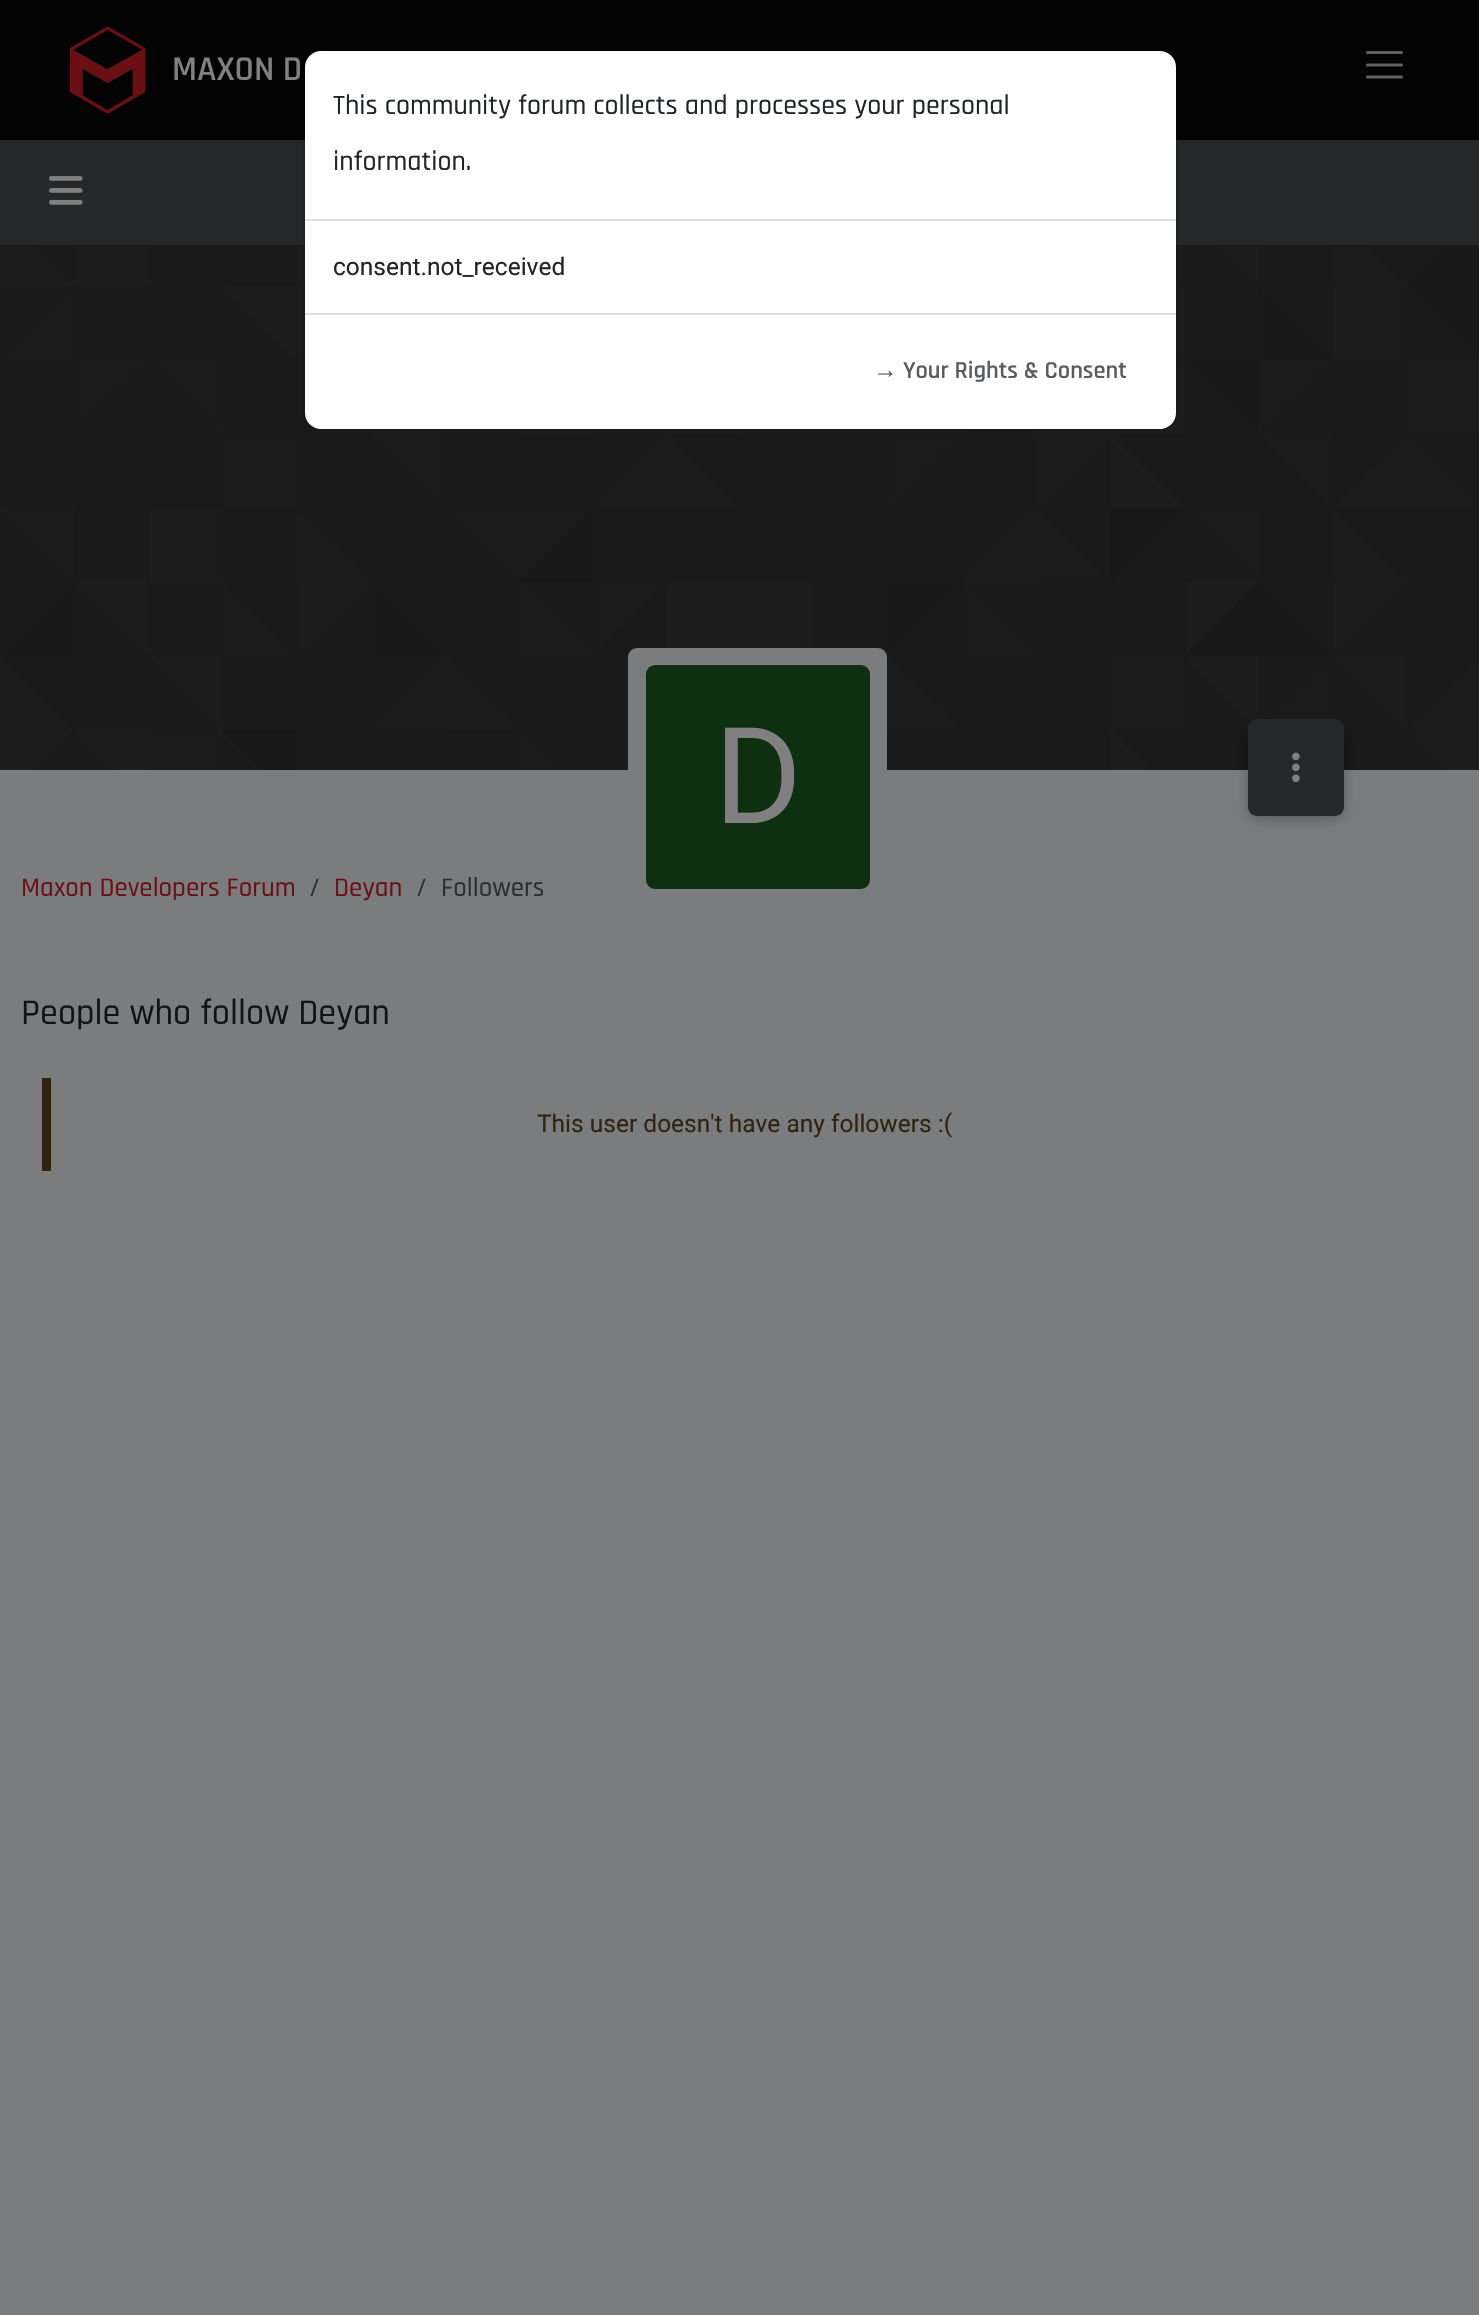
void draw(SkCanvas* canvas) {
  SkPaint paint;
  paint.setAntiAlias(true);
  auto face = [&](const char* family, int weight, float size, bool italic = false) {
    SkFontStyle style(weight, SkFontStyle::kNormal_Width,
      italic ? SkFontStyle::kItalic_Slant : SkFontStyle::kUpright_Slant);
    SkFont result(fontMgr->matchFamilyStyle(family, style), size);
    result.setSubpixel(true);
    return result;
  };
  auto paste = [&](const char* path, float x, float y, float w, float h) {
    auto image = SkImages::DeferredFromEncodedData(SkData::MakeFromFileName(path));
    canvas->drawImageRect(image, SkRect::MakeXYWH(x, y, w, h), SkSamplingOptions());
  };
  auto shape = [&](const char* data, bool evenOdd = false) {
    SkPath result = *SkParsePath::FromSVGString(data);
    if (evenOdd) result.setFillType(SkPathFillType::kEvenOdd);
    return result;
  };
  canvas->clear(0xff7b7c7d);
  paint.setColor(0xff030303);
  canvas->drawRect(SkRect::MakeXYWH(0, 0, 1479, 140), paint);
  paste("img/1.png", 70, 26, 76, 88);
  paint.setStroke(true);
  paint.setStrokeWidth(3.1f);
  paint.setStrokeCap(SkPaint::kRound_Cap);
  paint.setColor(0xff616161);
  canvas->drawPath(shape("M1367.5 52.5H1401.5M1367.5 65H1401.5M1367.5 77H1401.5"), paint);
  paint.setStroke(false);
  paint.setColor(0xff252728);
  canvas->drawRect(SkRect::MakeXYWH(0, 140, 1479, 105), paint);
  paste("img/2.png", 49, 176, 34, 29);
  paste("img/3.png", 0, 245, 1479, 525);
  paint.setColor(0xff7b7c7d);
  canvas->drawRoundRect(SkRect::MakeXYWH(628, 648, 259, 259), 9, 9, paint);
  paint.setColor(0xff0e2f10);
  canvas->drawRoundRect(SkRect::MakeXYWH(646, 665, 224, 224), 9, 9, paint);
  paint.setColor(0x1f000000);
  paint.setMaskFilter(SkMaskFilter::MakeBlur(kNormal_SkBlurStyle, 9));
  canvas->drawRoundRect(SkRect::MakeXYWH(1248, 723, 96, 96), 9, 9, paint);
  paint.setMaskFilter(nullptr);
  paint.setColor(0x29000000);
  paint.setMaskFilter(SkMaskFilter::MakeBlur(kNormal_SkBlurStyle, 4.5f));
  canvas->drawRoundRect(SkRect::MakeXYWH(1248, 723, 96, 96), 9, 9, paint);
  paint.setMaskFilter(nullptr);
  paint.setColor(0xff252728);
  canvas->drawRoundRect(SkRect::MakeXYWH(1248, 719, 96, 97), 9, 9, paint);
  paste("img/4.png", 1292, 752, 8, 31);
  paint.setColor(0xff302310);
  canvas->drawRect(SkRect::MakeXYWH(42, 1078, 9, 93), paint);
  paint.setColor(0xffffffff);
  canvas->drawRoundRect(SkRect::MakeXYWH(305, 51, 871, 378), 16, 16, paint);
  paint.setStroke(true);
  paint.setStrokeWidth(2);
  paint.setStrokeCap(SkPaint::kButt_Cap);
  paint.setColor(0x1a000000);
  canvas->drawRoundRect(SkRect::MakeXYWH(304, 50, 873, 380), 17, 17, paint);
  paint.setStroke(false);
  paint.setColor(0xffdee2e6);
  canvas->drawRect(SkRect::MakeXYWH(305, 219, 871, 2), paint);
  canvas->drawRect(SkRect::MakeXYWH(305, 313, 871, 2), paint);
  auto f0 = face("Rajdhani", 600, 35);
  paint.setColor(0xff808080);
  canvas->drawString("MAXON D", 172, 80, f0, paint);
  auto f1 = face("Roboto", 400, 134);
  canvas->drawString("D", 714, 823, f1, paint);
  auto f2 = face("Rajdhani", 500, 27);
  paint.setColor(0xff6a1014);
  canvas->drawString("Maxon Developers Forum", 21, 896, f2, paint);
  paint.setColor(0xff2b2d2f);
  canvas->drawString("/", 309, 896, f2, paint);
  paint.setColor(0xff6a1014);
  canvas->drawString("Deyan", 334, 896, f2, paint);
  paint.setColor(0xff2b2d2f);
  canvas->drawString("/", 416, 896, f2, paint);
  canvas->drawString("Followers", 441, 896, f2, paint);
  auto f3 = face("Rajdhani", 500, 36.25f);
  paint.setColor(0xff111315);
  canvas->drawString("People who follow Deyan", 21, 1024, f3, paint);
  auto f4 = face("Roboto", 400, 24.5f);
  paint.setColor(0xff302310);
  canvas->drawString("This user doesn't have any followers :(", 537, 1132, f4, paint);
  auto f5 = face("Rajdhani", 500, 28);
  paint.setColor(0xff212529);
  canvas->drawString("This community forum collects and processes your personal", 333, 114, f5, paint);
  canvas->drawString("information.", 333, 170, f5, paint);
  canvas->drawString("consent.not_received", 333, 275, f4, paint);
  auto f6 = face("Liberation Sans", 700, 24.5f);
  paint.setColor(0xff595c5f);
  canvas->drawString("→", 873, 378, f6, paint);
  auto f7 = face("Rajdhani", 600, 24.5f);
  canvas->drawString("Your Rights & Consent", 903, 378, f7, paint);
}
